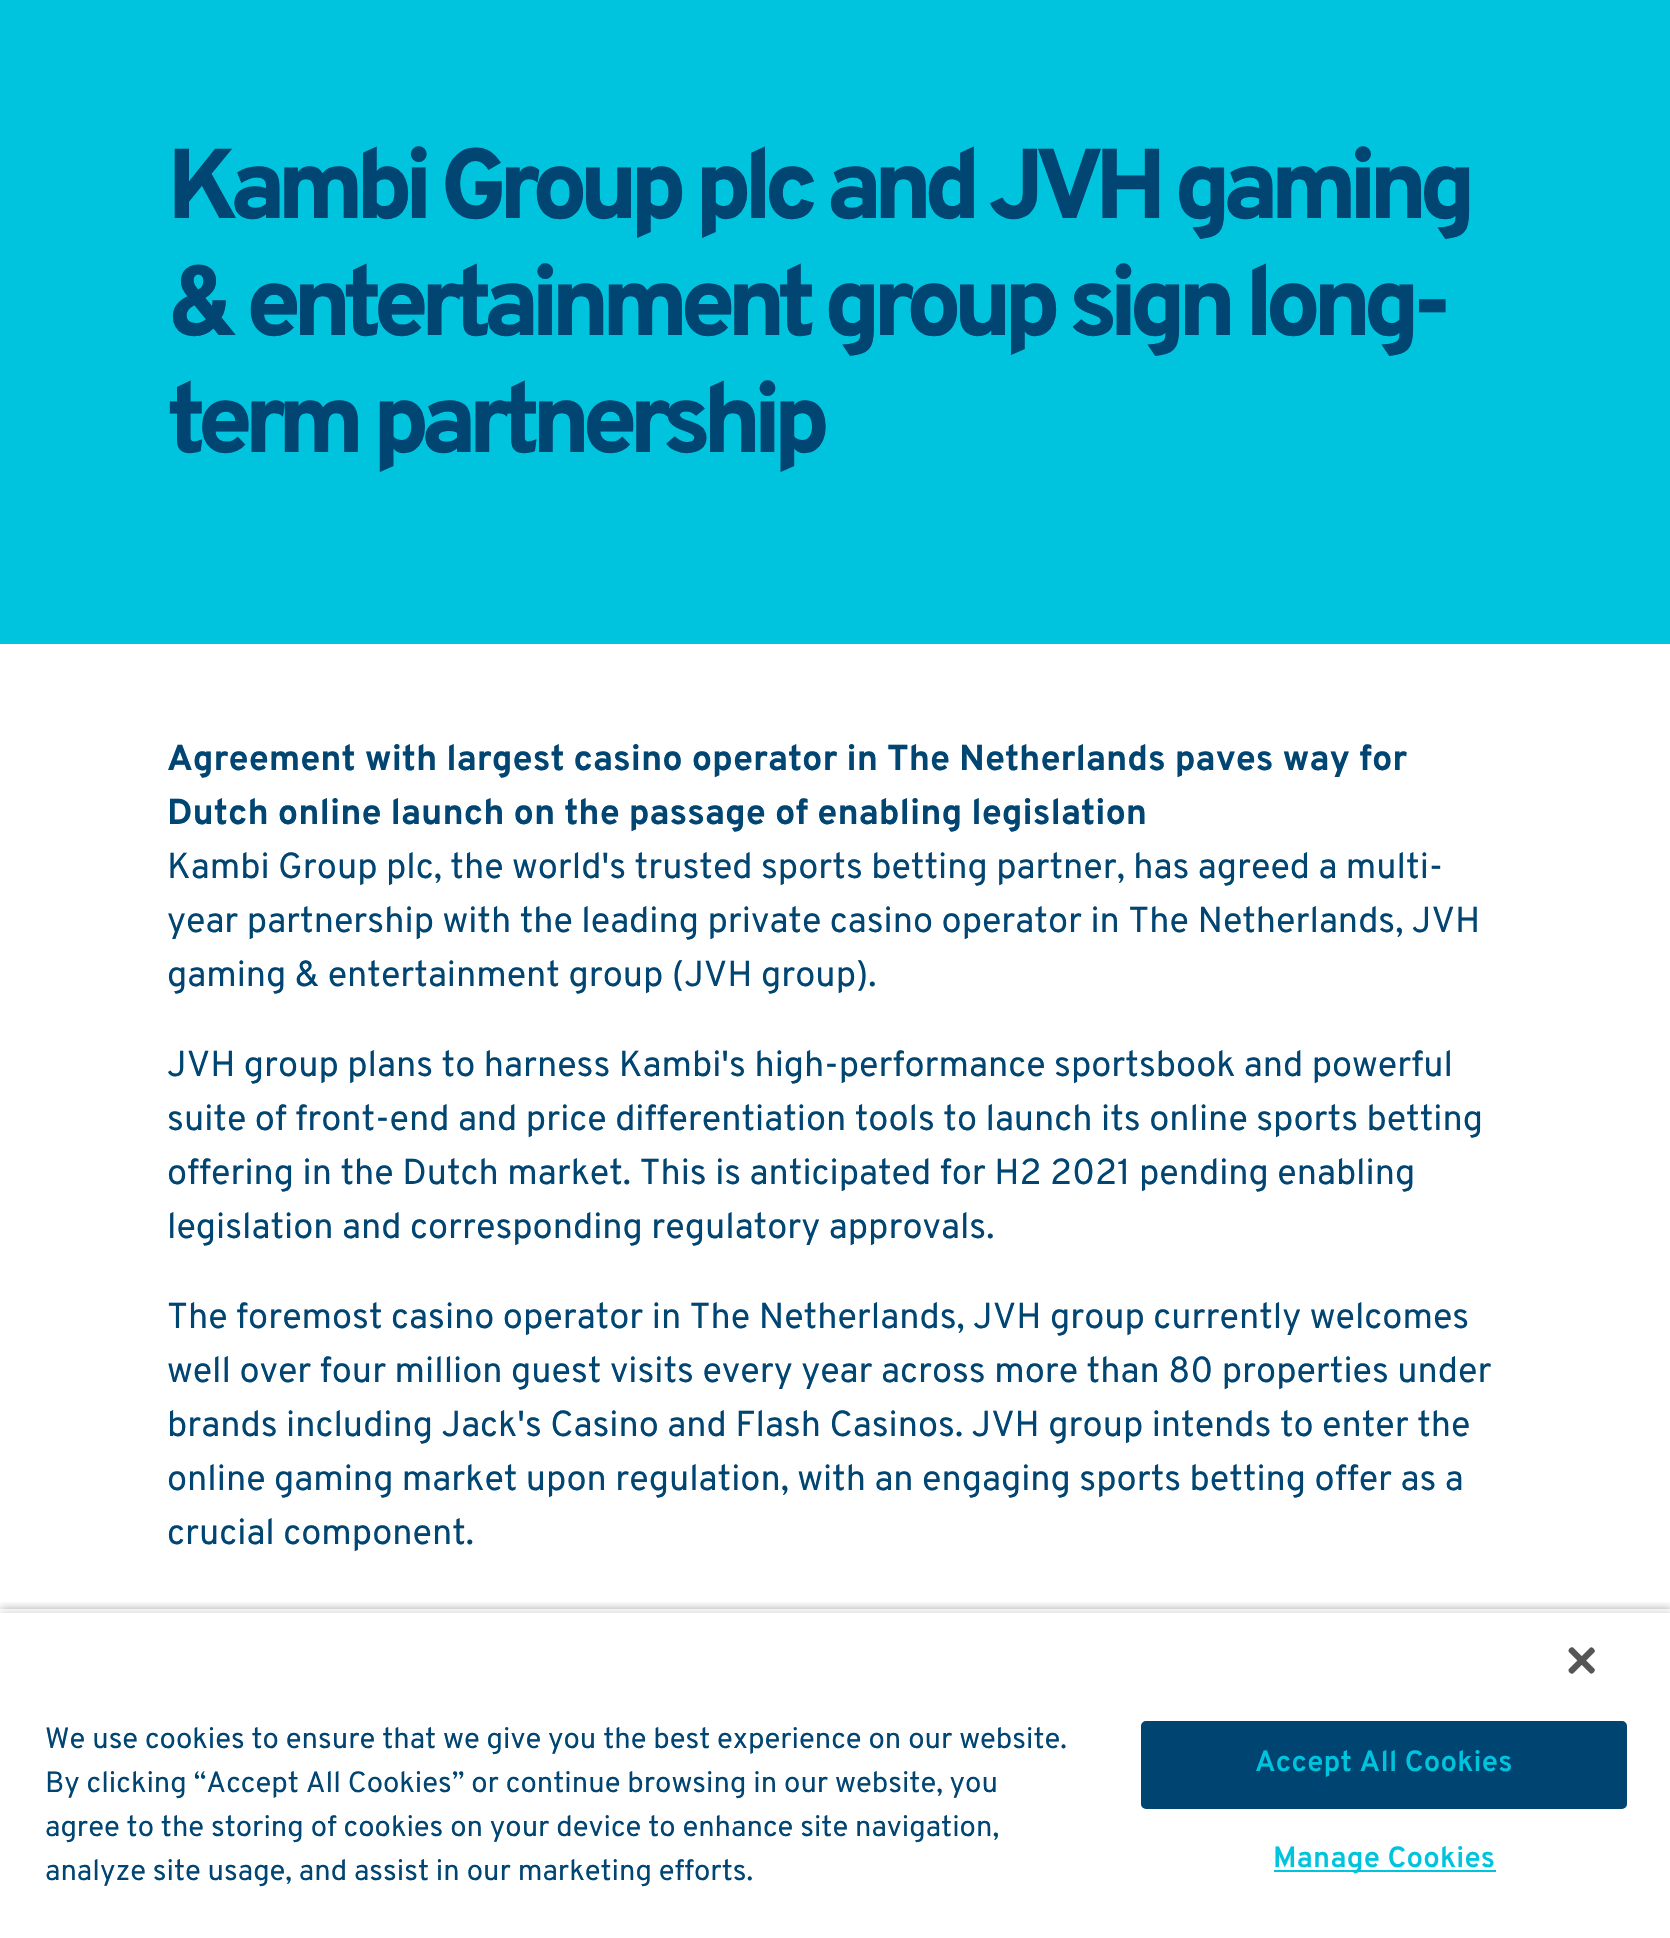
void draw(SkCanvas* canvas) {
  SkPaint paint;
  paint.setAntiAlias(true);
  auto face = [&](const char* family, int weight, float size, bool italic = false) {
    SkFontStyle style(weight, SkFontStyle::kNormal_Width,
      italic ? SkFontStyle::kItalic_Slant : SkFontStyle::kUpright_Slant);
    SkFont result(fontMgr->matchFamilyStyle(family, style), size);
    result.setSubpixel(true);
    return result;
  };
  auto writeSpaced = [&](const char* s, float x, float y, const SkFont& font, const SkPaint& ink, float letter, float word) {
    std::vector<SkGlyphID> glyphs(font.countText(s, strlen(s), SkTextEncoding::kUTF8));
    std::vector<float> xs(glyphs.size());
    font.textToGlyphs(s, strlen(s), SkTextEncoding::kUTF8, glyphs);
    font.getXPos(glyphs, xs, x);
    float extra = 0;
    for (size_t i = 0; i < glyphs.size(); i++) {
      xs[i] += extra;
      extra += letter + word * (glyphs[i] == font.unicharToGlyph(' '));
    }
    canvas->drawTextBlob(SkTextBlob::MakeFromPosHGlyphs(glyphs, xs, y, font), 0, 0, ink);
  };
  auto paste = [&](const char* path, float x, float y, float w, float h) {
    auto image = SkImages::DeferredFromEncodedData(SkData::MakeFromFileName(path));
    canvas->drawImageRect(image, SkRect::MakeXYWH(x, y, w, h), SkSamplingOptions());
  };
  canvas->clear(0xffffffff);
  paint.setColor(0xff00c4de);
  canvas->drawRect(SkRect::MakeXYWH(0, 0, 1670, 644), paint);
  canvas->save();
  canvas->clipRect(SkRect::MakeXYWH(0, 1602, 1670, 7));
  paint.setColor(0x59000000);
  paint.setMaskFilter(SkMaskFilter::MakeBlur(kNormal_SkBlurStyle, 4.5f));
  canvas->drawRect(SkRect::MakeXYWH(0, 1609, 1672, 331), paint);
  paint.setMaskFilter(nullptr);
  canvas->restore();
  canvas->save();
  canvas->clipRect(SkRect::MakeXYWH(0, 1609, 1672, 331));
  paint.setColor(0x33000000);
  paint.setMaskFilter(SkMaskFilter::MakeBlur(kNormal_SkBlurStyle, 4.5f));
  canvas->drawRect(SkRect::MakeXYWH(0, 1613, 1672, 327), paint);
  paint.setMaskFilter(nullptr);
  canvas->restore();
  paint.setColor(0xffffffff);
  canvas->drawRect(SkRect::MakeXYWH(0, 1613, 1670, 325), paint);
  paste("img/1.png", 1568, 1647, 27, 27);
  paint.setColor(0xff004572);
  canvas->drawRoundRect(SkRect::MakeXYWH(1142, 1722, 484, 86), 4, 4, paint);
  paint.setStroke(true);
  paint.setStrokeWidth(2);
  canvas->drawRoundRect(SkRect::MakeXYWH(1142, 1722, 484, 86), 4, 4, paint);
  paint.setStroke(false);
  paint.setColor(0xff00c4de);
  canvas->drawRect(SkRect::MakeXYWH(1274, 1870, 222, 2), paint);
  auto f0 = face("Overpass", 800, 99);
  paint.setColor(0xff014572);
  {
    const struct { const char* s; float x, y; } items[] = {
      {"Kambi Group plc and JVH gaming", 167, 218},
      {"& entertainment group sign long-", 167, 335},
      {"term partnership", 167, 452},
    };
    for (auto [s, x, y] : items) {
      writeSpaced(s, x, y, f0, paint, -9, 0);
    }
  }
  auto f1 = face("Overpass", 700, 36);
  canvas->drawString("Agreement with largest casino operator in The Netherlands paves way for", 167, 770, f1, paint);
  canvas->drawString("Dutch online launch on the passage of enabling legislation", 167, 824, f1, paint);
  auto f2 = face("Overpass", 400, 36);
  {
    const struct { const char* s; float x, y; } items[] = {
      {"Kambi Group plc, the world's trusted sports betting partner, has agreed a multi-", 167, 878},
      {"year partnership with the leading private casino operator in The Netherlands, JVH", 167, 932},
      {"gaming & entertainment group (JVH group).", 167, 986},
      {"JVH group plans to harness Kambi's high-performance sportsbook and powerful", 167, 1076},
      {"suite of front-end and price differentiation tools to launch its online sports betting", 167, 1130},
      {"offering in the Dutch market. This is anticipated for H2 2021 pending enabling", 167, 1184},
      {"legislation and corresponding regulatory approvals.", 167, 1238},
      {"The foremost casino operator in The Netherlands, JVH group currently welcomes", 167, 1328},
      {"well over four million guest visits every year across more than 80 properties under", 167, 1382},
      {"brands including Jack's Casino and Flash Casinos. JVH group intends to enter the", 167, 1436},
      {"online gaming market upon regulation, with an engaging sports betting offer as a", 167, 1490},
      {"crucial component.", 167, 1544},
    };
    for (auto [s, x, y] : items) {
      canvas->drawString(s, x, y, f2, paint);
    }
  }
  auto f3 = face("Overpass", 400, 29.25f);
  {
    const struct { const char* s; float x, y; } items[] = {
      {"We use cookies to ensure that we give you the best experience on our website.", 45, 1748},
      {"By clicking “Accept All Cookies” or continue browsing in our website, you", 45, 1792},
      {"agree to the storing of cookies on your device to enhance site navigation,", 45, 1836},
      {"analyze site usage, and assist in our marketing efforts.", 45, 1880},
    };
    for (auto [s, x, y] : items) {
      canvas->drawString(s, x, y, f3, paint);
    }
  }
  auto f4 = face("Overpass", 600, 29.25f);
  paint.setColor(0xff00c4de);
  writeSpaced("Accept All Cookies", 1255, 1771, f4, paint, 0.25f, 0);
  writeSpaced("Manage Cookies", 1273, 1867, f4, paint, 0.25f, 0);
}
